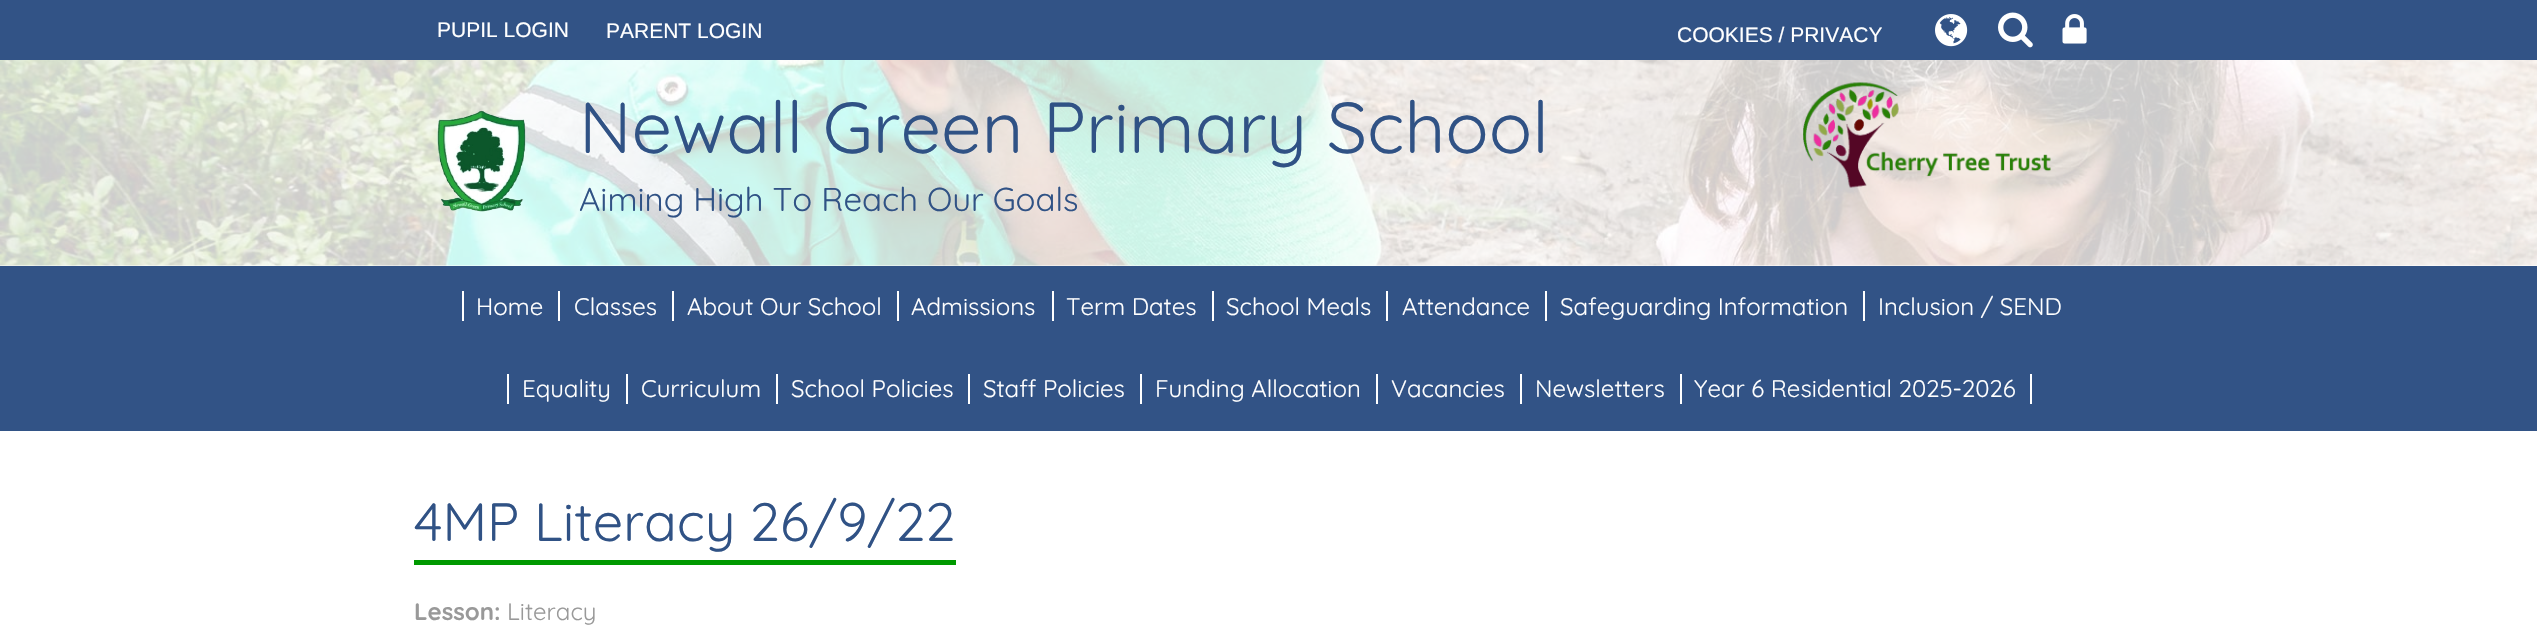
void draw(SkCanvas* canvas) {
  SkPaint paint;
  paint.setAntiAlias(true);
  auto face = [&](const char* family, int weight, float size, bool italic = false) {
    SkFontStyle style(weight, SkFontStyle::kNormal_Width,
      italic ? SkFontStyle::kItalic_Slant : SkFontStyle::kUpright_Slant);
    SkFont result(fontMgr->matchFamilyStyle(family, style), size);
    result.setSubpixel(true);
    return result;
  };
  auto paste = [&](const char* path, float x, float y, float w, float h) {
    auto image = SkImages::DeferredFromEncodedData(SkData::MakeFromFileName(path));
    canvas->drawImageRect(image, SkRect::MakeXYWH(x, y, w, h), SkSamplingOptions());
  };
  canvas->clear(0xffffffff);
  paint.setColor(0xff325386);
  canvas->drawRect(SkRect::MakeXYWH(0, 0, 2537, 60), paint);
  paste("img/1.png", 1935, 14, 33, 33);
  paste("img/2.png", 1998, 12, 35, 36);
  paste("img/3.png", 2062, 14, 25, 30);
  paste("img/4.png", 0, 60, 2537, 206);
  paste("img/5.png", 437, 110, 89, 102);
  paste("img/6.png", 1803, 82, 248, 106);
  {
    const struct { float x, y, w, h; SkColor color; } items[] = {
      {0, 266, 2537, 165, 0xff325386},
      {462, 291, 2, 30, 0xffffffff},
      {558, 291, 2, 30, 0xffffffff},
      {672, 291, 2, 30, 0xffffffff},
      {897, 291, 2, 30, 0xffffffff},
      {1052, 291, 2, 30, 0xffffffff},
      {1212, 291, 2, 30, 0xffffffff},
      {1386, 291, 2, 30, 0xffffffff},
      {1545, 291, 2, 30, 0xffffffff},
      {1863, 291, 2, 30, 0xffffffff},
      {507, 374, 2, 30, 0xffffffff},
      {626, 374, 2, 30, 0xffffffff},
      {776, 374, 2, 30, 0xffffffff},
      {968, 374, 2, 30, 0xffffffff},
      {1140, 374, 2, 30, 0xffffffff},
      {1376, 374, 2, 30, 0xffffffff},
      {1520, 374, 2, 30, 0xffffffff},
      {1680, 374, 2, 30, 0xffffffff},
      {2030, 374, 2, 30, 0xffffffff},
      {414, 560, 542, 5, 0xff009900},
    };
    for (auto [x, y, w, h, color] : items) {
      paint.setColor(color);
      canvas->drawRect(SkRect::MakeXYWH(x, y, w, h), paint);
    }
  }
  auto f0 = face("Liberation Sans", 400, 21);
  paint.setColor(0xffffffff);
  {
    const struct { const char* s; float x, y; } items[] = {
      {"PUPIL LOGIN", 437, 37},
      {"PARENT LOGIN", 606, 38},
      {"COOKIES / PRIVACY", 1677, 42},
    };
    for (auto [s, x, y] : items) {
      canvas->drawString(s, x, y, f0, paint);
    }
  }
  auto f1 = face("Quicksand", 400, 72);
  paint.setColor(0xff305285);
  canvas->drawString("Newall Green Primary School", 579, 153, f1, paint);
  auto f2 = face("Quicksand", 400, 33);
  canvas->drawString("Aiming High To Reach Our Goals", 579, 211, f2, paint);
  auto f3 = face("Quicksand", 400, 24);
  paint.setColor(0xffffffff);
  {
    const struct { const char* s; float x, y; } items[] = {
      {"Home", 476, 315},
      {"Classes", 574, 315},
      {"About Our School", 687, 315},
      {"Admissions", 911, 315},
      {"Term Dates", 1066, 315},
      {"School Meals", 1226, 315},
      {"Attendance", 1402, 315},
      {"Safeguarding Information", 1560, 315},
      {"Inclusion / SEND", 1878, 315},
      {"Equality", 522, 397},
      {"Curriculum", 641, 397},
      {"School Policies", 791, 397},
      {"Staff Policies", 983, 397},
      {"Funding Allocation", 1155, 397},
      {"Vacancies", 1391, 397},
      {"Newsletters", 1535, 397},
      {"Year 6 Residential 2025-2026", 1694, 397},
    };
    for (auto [s, x, y] : items) {
      canvas->drawString(s, x, y, f3, paint);
    }
  }
  auto f4 = face("Quicksand", 400, 54);
  paint.setColor(0xff305285);
  canvas->drawString("4MP Literacy 26/9/22", 414, 541, f4, paint);
  auto f5 = face("Quicksand", 700, 24);
  paint.setColor(0xff999999);
  canvas->drawString("Lesson:", 414, 620, f5, paint);
  canvas->drawString("Literacy", 507, 620, f3, paint);
}
